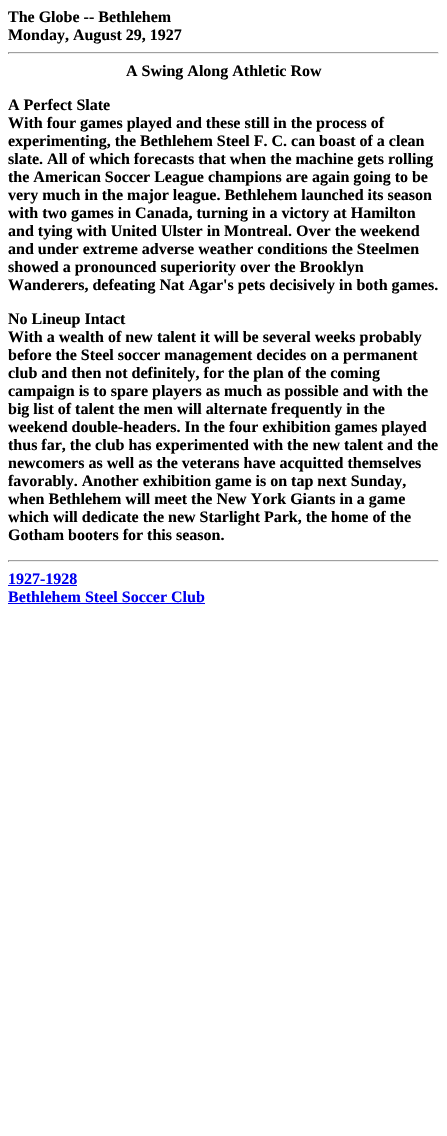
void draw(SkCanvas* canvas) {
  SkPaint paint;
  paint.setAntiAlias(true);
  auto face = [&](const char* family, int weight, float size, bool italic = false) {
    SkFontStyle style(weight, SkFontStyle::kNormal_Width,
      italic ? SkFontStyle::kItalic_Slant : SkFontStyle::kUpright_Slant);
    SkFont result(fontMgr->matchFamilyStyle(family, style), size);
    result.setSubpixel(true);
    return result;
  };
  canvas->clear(0xffffffff);
  {
    const struct { float x, y, w, h; SkColor color; } items[] = {
      {8, 52, 431, 1, 0xff9f9f9f},
      {438, 52, 1, 2, 0xffeeeeee},
      {8, 53, 431, 1, 0xffeeeeee},
      {8, 52, 1, 2, 0xff9f9f9f},
      {8, 560, 431, 1, 0xff9f9f9f},
      {438, 560, 1, 2, 0xffeeeeee},
      {8, 561, 431, 1, 0xffeeeeee},
      {8, 560, 1, 2, 0xff9f9f9f},
      {8, 585, 69, 1, 0xff0000ee},
      {8, 603, 197, 1, 0xff0000ee},
    };
    for (auto [x, y, w, h, color] : items) {
      paint.setColor(color);
      canvas->drawRect(SkRect::MakeXYWH(x, y, w, h), paint);
    }
  }
  auto f0 = face("Liberation Serif", 700, 16);
  paint.setColor(0xff000000);
  {
    const struct { const char* s; float x, y; } items[] = {
      {"The Globe -- Bethlehem", 8, 22},
      {"Monday, August 29, 1927", 8, 40},
      {"A Swing Along Athletic Row", 126, 76},
      {"A Perfect Slate", 8, 110},
      {"With four games played and these still in the process of", 8, 128},
      {"experimenting, the Bethlehem Steel F. C. can boast of a clean", 8, 146},
      {"slate. All of which forecasts that when the machine gets rolling", 8, 164},
      {"the American Soccer League champions are again going to be", 8, 182},
      {"very much in the major league. Bethlehem launched its season", 8, 200},
      {"with two games in Canada, turning in a victory at Hamilton", 8, 218},
      {"and tying with United Ulster in Montreal. Over the weekend", 8, 236},
      {"and under extreme adverse weather conditions the Steelmen", 8, 254},
      {"showed a pronounced superiority over the Brooklyn", 8, 272},
      {"Wanderers, defeating Nat Agar's pets decisively in both games.", 8, 290},
      {"No Lineup Intact", 8, 324},
      {"With a wealth of new talent it will be several weeks probably", 8, 342},
      {"before the Steel soccer management decides on a permanent", 8, 360},
      {"club and then not definitely, for the plan of the coming", 8, 378},
      {"campaign is to spare players as much as possible and with the", 8, 396},
      {"big list of talent the men will alternate frequently in the", 8, 414},
      {"weekend double-headers. In the four exhibition games played", 8, 432},
      {"thus far, the club has experimented with the new talent and the", 8, 450},
      {"newcomers as well as the veterans have acquitted themselves", 8, 468},
      {"favorably. Another exhibition game is on tap next Sunday,", 8, 486},
      {"when Bethlehem will meet the New York Giants in a game", 8, 504},
      {"which will dedicate the new Starlight Park, the home of the", 8, 522},
      {"Gotham booters for this season.", 8, 540},
    };
    for (auto [s, x, y] : items) {
      canvas->drawString(s, x, y, f0, paint);
    }
  }
  paint.setColor(0xff0000ee);
  canvas->drawString("1927-1928", 8, 584, f0, paint);
  canvas->drawString("Bethlehem Steel Soccer Club", 8, 602, f0, paint);
}
